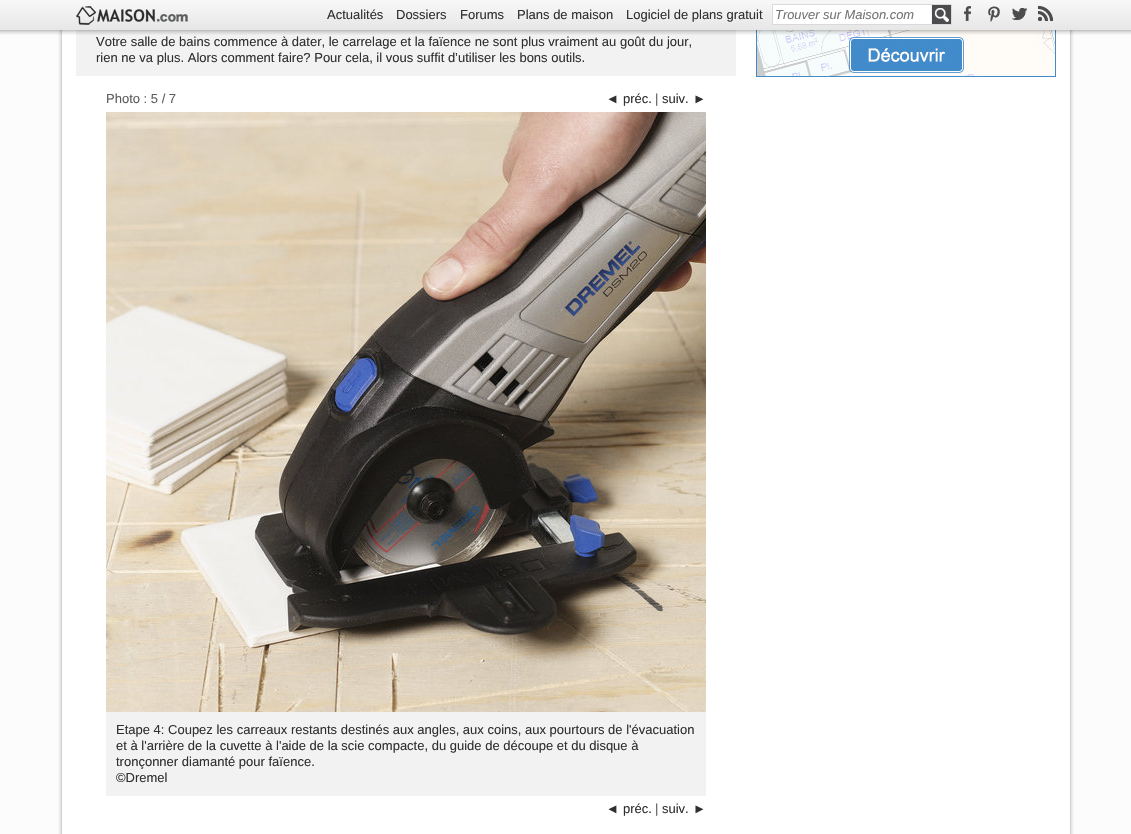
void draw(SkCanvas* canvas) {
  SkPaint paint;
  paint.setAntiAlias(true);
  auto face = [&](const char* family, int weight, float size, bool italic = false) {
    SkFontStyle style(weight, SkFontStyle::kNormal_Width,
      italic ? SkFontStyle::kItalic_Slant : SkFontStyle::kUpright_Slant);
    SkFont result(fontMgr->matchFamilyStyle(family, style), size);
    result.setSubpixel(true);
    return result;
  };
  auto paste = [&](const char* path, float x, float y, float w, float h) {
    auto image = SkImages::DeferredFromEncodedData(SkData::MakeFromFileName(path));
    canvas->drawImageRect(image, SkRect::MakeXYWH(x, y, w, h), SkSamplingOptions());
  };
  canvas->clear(0xfffcfcfc);
  paste("img/8.png", 58, 30, 1016, 804);
  paint.setColor(0xfff2f2f2);
  canvas->drawRect(SkRect::MakeXYWH(76, 30, 660, 46), paint);
  paste("img/10.png", 756, 30, 300, 47);
  paste("img/1.png", 0, 0, 1131, 35);
  paste("img/2.png", 76, 6, 112, 19);
  paint.setColor(0xffffffff);
  canvas->drawRect(SkRect::MakeXYWH(773, 5, 159, 19), paint);
  paste("img/3.png", 931, 5, 20, 19);
  paint.setStroke(true);
  paint.setStrokeWidth(1);
  paint.setColor(0xffdadada);
  canvas->drawRect(SkRect::MakeXYWH(772.5f, 4.5f, 179, 20), paint);
  paste("img/4.png", 964, 6, 7, 15);
  paste("img/5.png", 988, 6, 12, 16);
  paste("img/6.png", 1012, 8, 15, 12);
  paste("img/7.png", 1038, 6, 15, 15);
  paste("img/9.png", 106, 112, 600, 600);
  paint.setStroke(false);
  paint.setColor(0xfff2f2f2);
  canvas->drawRect(SkRect::MakeXYWH(106, 712, 600, 84), paint);
  auto f0 = face("Arimo", 400, 13);
  paint.setColor(0xff303030);
  {
    const struct { const char* s; float x, y; } items[] = {
      {"Actualités", 327, 19},
      {"Dossiers", 396, 19},
      {"Forums", 460, 19},
      {"Plans de maison", 517, 19},
      {"Logiciel de plans gratuit", 626, 19},
    };
    for (auto [s, x, y] : items) {
      canvas->drawString(s, x, y, f0, paint);
    }
  }
  auto f1 = face("Liberation Sans", 400, 12.9f, true);
  paint.setColor(0xff757575);
  canvas->drawString("Trouver sur Maison.com", 775, 19, f1, paint);
  paint.setColor(0xff303030);
  canvas->drawString("Votre salle de bains commence à dater, le carrelage et la faïence ne sont plus vraiment au goût du jour,", 96, 46, f0, paint);
  canvas->drawString("rien ne va plus. Alors comment faire? Pour cela, il vous suffit d’utiliser les bons outils.", 96, 62, f0, paint);
  paint.setColor(0xff5c5d5e);
  canvas->drawString("Photo : 5 / 7", 106, 103, f0, paint);
  auto f2 = face("Liberation Sans", 400, 13);
  paint.setColor(0xff303030);
  canvas->drawString("◄", 606, 103, f2, paint);
  canvas->drawString("préc.", 623, 103, f0, paint);
  paint.setColor(0xff5c5d5e);
  canvas->drawString("|", 655, 103, f0, paint);
  paint.setColor(0xff303030);
  canvas->drawString("suiv.", 662, 103, f0, paint);
  canvas->drawString("►", 693, 103, f2, paint);
  {
    const struct { const char* s; float x, y; } items[] = {
      {"Etape 4: Coupez les carreaux restants destinés aux angles, aux coins, aux pourtours de l'évacuation", 116, 734},
      {"et à l'arrière de la cuvette à l'aide de la scie compacte, du guide de découpe et du disque à", 116, 750},
      {"tronçonner diamanté pour faïence.", 116, 766},
      {"©Dremel", 116, 782},
    };
    for (auto [s, x, y] : items) {
      canvas->drawString(s, x, y, f0, paint);
    }
  }
  canvas->drawString("◄", 606, 813, f2, paint);
  canvas->drawString("préc.", 623, 813, f0, paint);
  paint.setColor(0xff5c5d5e);
  canvas->drawString("|", 655, 813, f0, paint);
  paint.setColor(0xff303030);
  canvas->drawString("suiv.", 662, 813, f0, paint);
  canvas->drawString("►", 693, 813, f2, paint);
}
